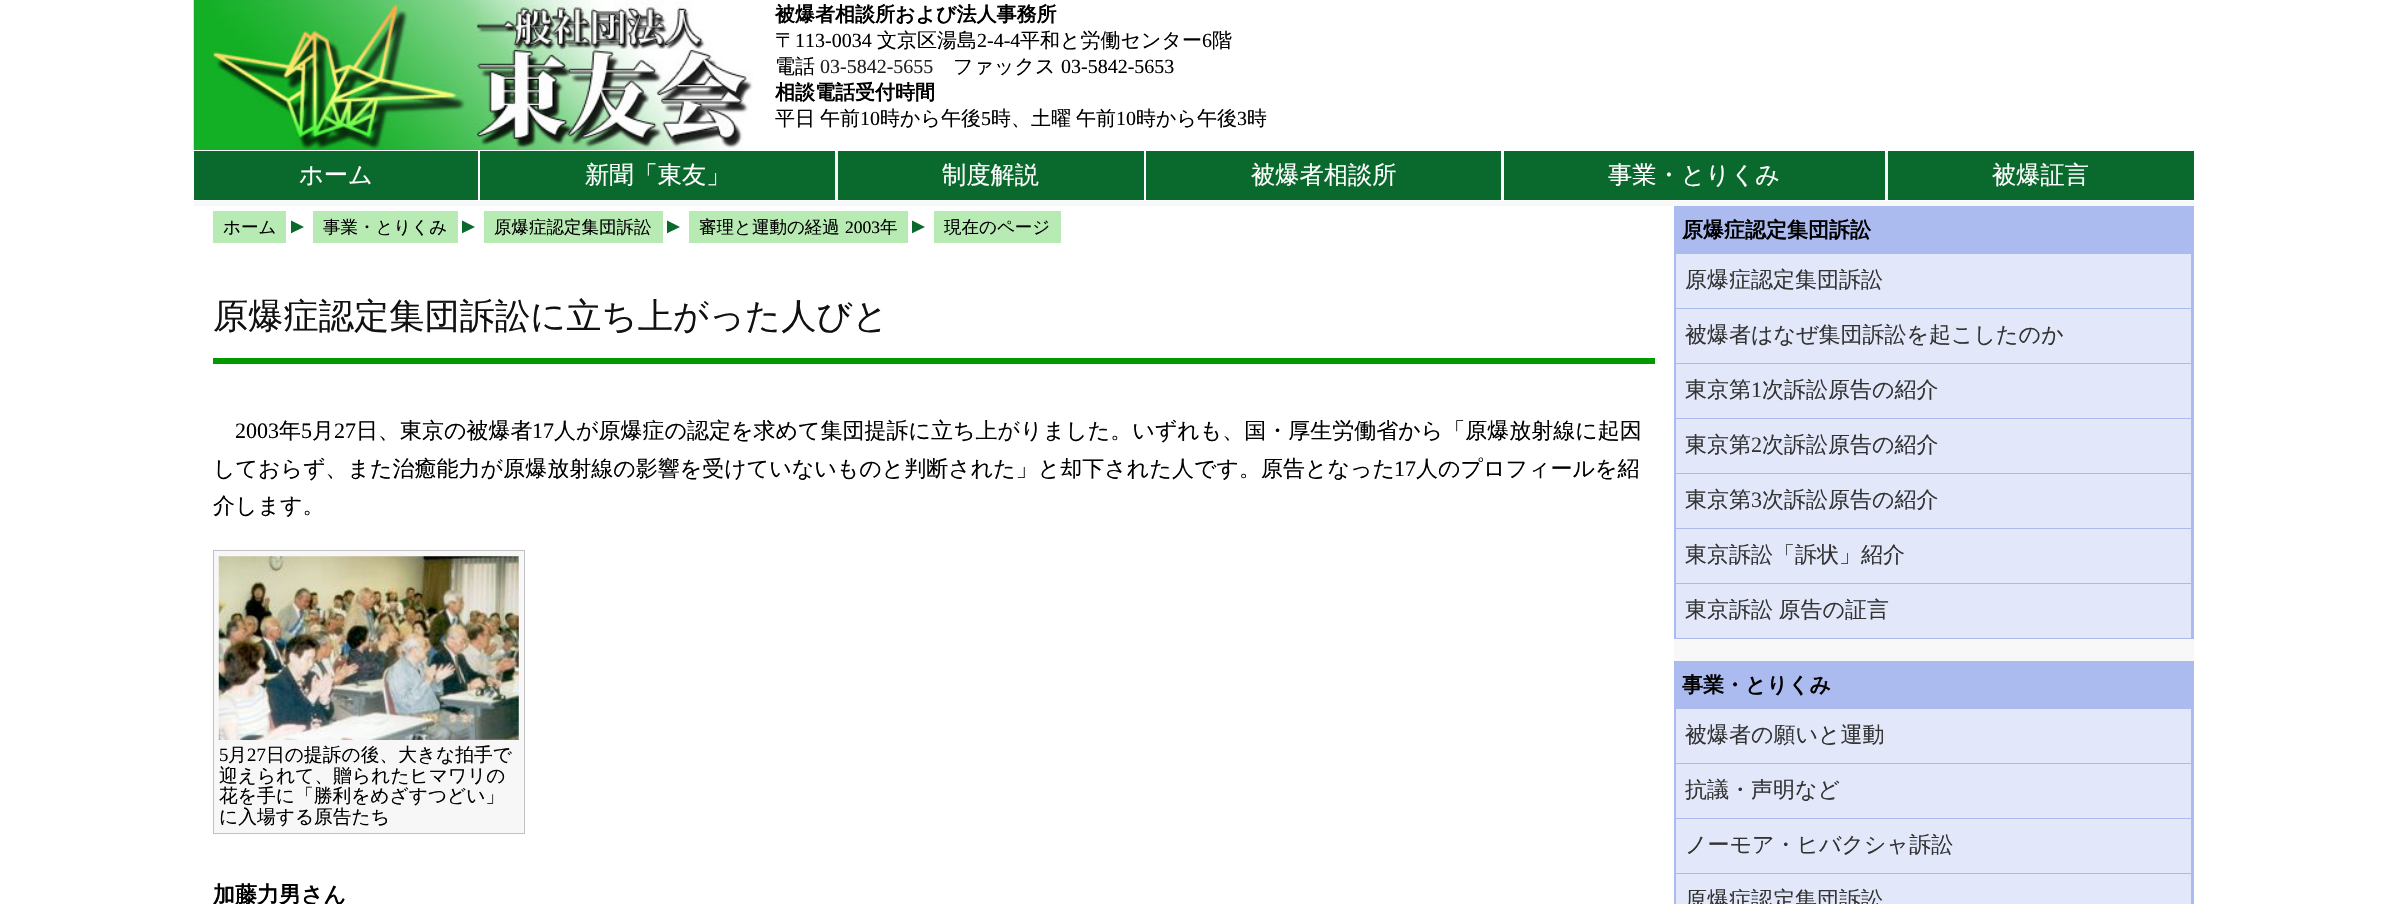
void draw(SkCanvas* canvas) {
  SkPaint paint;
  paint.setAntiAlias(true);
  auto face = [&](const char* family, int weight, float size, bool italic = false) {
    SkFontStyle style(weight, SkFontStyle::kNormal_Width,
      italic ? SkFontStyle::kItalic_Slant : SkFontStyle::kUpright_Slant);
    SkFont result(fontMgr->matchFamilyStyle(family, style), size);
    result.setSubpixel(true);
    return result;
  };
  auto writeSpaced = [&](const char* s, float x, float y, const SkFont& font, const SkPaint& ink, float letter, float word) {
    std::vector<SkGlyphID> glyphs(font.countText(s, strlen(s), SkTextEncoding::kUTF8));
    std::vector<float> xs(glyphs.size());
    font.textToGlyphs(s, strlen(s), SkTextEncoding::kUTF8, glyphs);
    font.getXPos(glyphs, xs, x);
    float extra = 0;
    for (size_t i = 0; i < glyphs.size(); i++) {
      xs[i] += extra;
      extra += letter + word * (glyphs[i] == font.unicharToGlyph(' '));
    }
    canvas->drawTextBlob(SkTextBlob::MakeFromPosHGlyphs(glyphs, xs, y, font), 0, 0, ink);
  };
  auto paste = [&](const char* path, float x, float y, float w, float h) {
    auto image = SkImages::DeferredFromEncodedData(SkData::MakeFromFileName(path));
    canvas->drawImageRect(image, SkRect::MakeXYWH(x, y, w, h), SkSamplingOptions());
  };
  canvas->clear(0xffffffff);
  paint.setColor(0xfff8f8f8);
  canvas->drawRect(SkRect::MakeXYWH(194, 151, 2000, 510), paint);
  paste("img/1.png", 193, 0, 560, 150);
  {
    const struct { float x, y, w, h; SkColor color; } items[] = {
      {478, 150, 1, 51, 0xffffffff},
      {194, 200, 285, 1, 0xffffffff},
      {194, 151, 284, 49, 0xff0a692c},
    };
    for (auto [x, y, w, h, color] : items) {
      paint.setColor(color);
      canvas->drawRect(SkRect::MakeXYWH(x, y, w, h), paint);
    }
  }
  paint.setStroke(true);
  paint.setStrokeWidth(1);
  paint.setColor(0xffffffff);
  canvas->drawRect(SkRect::MakeXYWH(479.5f, 150.5f, 356, 50), paint);
  paint.setStroke(false);
  paint.setColor(0xff0a692c);
  canvas->drawRect(SkRect::MakeXYWH(480, 151, 355, 49), paint);
  paint.setStroke(true);
  paint.setColor(0xffffffff);
  canvas->drawRect(SkRect::MakeXYWH(836.5f, 150.5f, 308, 50), paint);
  paint.setStroke(false);
  paint.setColor(0xff0a692c);
  canvas->drawRect(SkRect::MakeXYWH(838, 151, 306, 49), paint);
  paint.setStroke(true);
  paint.setColor(0xffffffff);
  canvas->drawRect(SkRect::MakeXYWH(1145.5f, 150.5f, 357, 50), paint);
  paint.setStroke(false);
  paint.setColor(0xff0a692c);
  canvas->drawRect(SkRect::MakeXYWH(1146, 151, 355, 49), paint);
  paint.setStroke(true);
  paint.setColor(0xffffffff);
  canvas->drawRect(SkRect::MakeXYWH(1503.5f, 150.5f, 382, 50), paint);
  paint.setStroke(false);
  {
    const struct { float x, y, w, h; SkColor color; } items[] = {
      {1504, 151, 381, 49, 0xff0a692c},
      {1886, 200, 308, 1, 0xffffffff},
      {1886, 150, 1, 51, 0xffffffff},
      {1888, 151, 306, 49, 0xff0a692c},
      {194, 206, 1480, 455, 0xffffffff},
      {213, 211, 73, 32, 0xffb8eab4},
      {313, 211, 145, 32, 0xffb8eab4},
      {484, 211, 179, 32, 0xffb8eab4},
      {689, 211, 219, 32, 0xffb8eab4},
      {934, 211, 127, 32, 0xffb8eab4},
      {213, 358, 1442, 6, 0xff009900},
    };
    for (auto [x, y, w, h, color] : items) {
      paint.setColor(color);
      canvas->drawRect(SkRect::MakeXYWH(x, y, w, h), paint);
    }
  }
  paint.setColor(0xfff7f7f7);
  canvas->drawRect(SkRect::MakeXYWH(213.5f, 550.5f, 311, 283), paint);
  paint.setStroke(true);
  paint.setColor(0xffc0c0c0);
  canvas->drawRect(SkRect::MakeXYWH(213.5f, 550.5f, 311, 283), paint);
  paste("img/2.png", 218, 556, 301, 184);
  paint.setStroke(false);
  {
    const struct { float x, y, w, h; SkColor color; } items[] = {
      {1674, 206, 520, 433, 0xffabbbef},
      {1676, 254, 515, 54, 0xffe2e8fa},
      {1676, 309, 515, 54, 0xffe2e8fa},
      {1676, 364, 515, 54, 0xffe2e8fa},
      {1676, 419, 515, 54, 0xffe2e8fa},
      {1676, 474, 515, 54, 0xffe2e8fa},
      {1676, 529, 515, 54, 0xffe2e8fa},
      {1676, 584, 515, 54, 0xffe2e8fa},
      {1674, 661, 520, 243, 0xffabbbef},
      {1676, 709, 515, 54, 0xffe2e8fa},
      {1676, 764, 515, 54, 0xffe2e8fa},
      {1676, 819, 515, 54, 0xffe2e8fa},
      {1676, 874, 515, 30, 0xffe2e8fa},
    };
    for (auto [x, y, w, h, color] : items) {
      paint.setColor(color);
      canvas->drawRect(SkRect::MakeXYWH(x, y, w, h), paint);
    }
  }
  auto f0 = face("WenQuanYi Zen Hei", 700, 20);
  paint.setColor(0xff000000);
  canvas->drawString("被爆者相談所および法人事務所", 775, 21, f0, paint);
  auto f1 = face("WenQuanYi Zen Hei", 500, 20);
  canvas->drawString("〒", 775, 47, f1, paint);
  auto f2 = face("Liberation Serif", 400, 20);
  canvas->drawString("113-0034", 795, 47, f2, paint);
  canvas->drawString("文京区湯島", 877, 47, f1, paint);
  canvas->drawString("2-4-4", 977, 47, f2, paint);
  canvas->drawString("平和と労働センター", 1020, 47, f1, paint);
  canvas->drawString("6", 1202, 47, f2, paint);
  canvas->drawString("階", 1212, 47, f1, paint);
  canvas->drawString("電話", 775, 73, f1, paint);
  paint.setColor(0xff222222);
  canvas->drawString("03-5842-5655", 820, 73, f2, paint);
  paint.setColor(0xff000000);
  canvas->drawString("ファックス", 953, 73, f1, paint);
  canvas->drawString("03-5842-5653", 1061, 73, f2, paint);
  canvas->drawString("相談電話受付時間", 775, 99, f0, paint);
  writeSpaced("平日 午前", 775, 125, f1, paint, 0, -1);
  canvas->drawString("10", 860, 125, f2, paint);
  canvas->drawString("時から午後", 880, 125, f1, paint);
  canvas->drawString("5", 981, 125, f2, paint);
  writeSpaced("時、土曜 午前", 991, 125, f1, paint, 0, -1);
  canvas->drawString("10", 1116, 125, f2, paint);
  canvas->drawString("時から午後", 1136, 125, f1, paint);
  canvas->drawString("3", 1237, 125, f2, paint);
  canvas->drawString("時", 1247, 125, f1, paint);
  auto f3 = face("WenQuanYi Zen Hei", 500, 24.25f);
  paint.setColor(0xffffffff);
  {
    const struct { const char* s; float x, y; } items[] = {
      {"ホーム", 299, 183},
      {"新聞「東友」", 585, 183},
      {"制度解説", 942, 183},
      {"被爆者相談所", 1251, 183},
      {"事業・とりくみ", 1608, 183},
      {"被爆証言", 1992, 183},
    };
    for (auto [s, x, y] : items) {
      canvas->drawString(s, x, y, f3, paint);
    }
  }
  auto f4 = face("WenQuanYi Zen Hei", 500, 17.5f);
  paint.setColor(0xff000000);
  canvas->drawString("ホーム", 223, 233, f4, paint);
  auto f5 = face("Liberation Serif", 400, 22);
  paint.setColor(0xff0a692c);
  canvas->save();
  canvas->rotate(90, 291, 216);
  canvas->drawString("▲", 291, 216, f5, paint);
  canvas->restore();
  paint.setColor(0xff000000);
  canvas->drawString("事業・とりくみ", 323, 233, f4, paint);
  paint.setColor(0xff0a692c);
  canvas->save();
  canvas->rotate(90, 462, 216);
  canvas->drawString("▲", 462, 216, f5, paint);
  canvas->restore();
  paint.setColor(0xff000000);
  canvas->drawString("原爆症認定集団訴訟", 494, 233, f4, paint);
  paint.setColor(0xff0a692c);
  canvas->save();
  canvas->rotate(90, 667, 216);
  canvas->drawString("▲", 667, 216, f5, paint);
  canvas->restore();
  paint.setColor(0xff000000);
  canvas->drawString("審理と運動の経過", 699, 233, f4, paint);
  auto f6 = face("Liberation Serif", 400, 17.5f);
  canvas->drawString("2003", 845, 233, f6, paint);
  canvas->drawString("年", 880, 233, f4, paint);
  paint.setColor(0xff0a692c);
  canvas->save();
  canvas->rotate(90, 912, 216);
  canvas->drawString("▲", 912, 216, f5, paint);
  canvas->restore();
  paint.setColor(0xff000000);
  canvas->drawString("現在のページ", 944, 233, f4, paint);
  auto f7 = face("WenQuanYi Zen Hei", 500, 35.25f);
  paint.setColor(0xff111111);
  canvas->drawString("原爆症認定集団訴訟に立ち上がった人びと", 213, 328, f7, paint);
  paint.setColor(0xff000000);
  canvas->drawString("2003", 235, 438, f5, paint);
  auto f8 = face("WenQuanYi Zen Hei", 500, 22);
  canvas->drawString("年", 279, 438, f8, paint);
  canvas->drawString("5", 301, 438, f5, paint);
  canvas->drawString("月", 312, 438, f8, paint);
  canvas->drawString("27", 334, 438, f5, paint);
  canvas->drawString("日、東京の被爆者", 356, 438, f8, paint);
  canvas->drawString("17", 532, 438, f5, paint);
  canvas->drawString("人が原爆症の認定を求めて集団提訴に立ち上がりました。いずれも、国・厚生労働省から「原爆放射線に起因", 554, 438, f8, paint);
  canvas->drawString("しておらず、また治癒能力が原爆放射線の影響を受けていないものと判断された」と却下された人です。原告となった", 213, 476, f8, paint);
  canvas->drawString("17", 1394, 476, f5, paint);
  canvas->drawString("人のプロフィールを紹", 1416, 476, f8, paint);
  canvas->drawString("介します。", 213, 513, f8, paint);
  auto f9 = face("Liberation Serif", 400, 18.75f);
  canvas->drawString("5", 219, 761, f9, paint);
  auto f10 = face("WenQuanYi Zen Hei", 500, 18.75f);
  canvas->drawString("月", 228, 761, f10, paint);
  canvas->drawString("27", 247, 761, f9, paint);
  {
    const struct { const char* s; float x, y; } items[] = {
      {"日の提訴の後、大きな拍手で", 266, 761},
      {"迎えられて、贈られたヒマワリの", 219, 782},
      {"花を手に「勝利をめざすつどい」", 219, 802},
      {"に入場する原告たち", 219, 823},
    };
    for (auto [s, x, y] : items) {
      canvas->drawString(s, x, y, f10, paint);
    }
  }
  auto f11 = face("WenQuanYi Zen Hei", 700, 22);
  canvas->drawString("加藤力男さん", 213, 902, f11, paint);
  auto f12 = face("WenQuanYi Zen Hei", 700, 21);
  canvas->drawString("原爆症認定集団訴訟", 1682, 237, f12, paint);
  paint.setColor(0xff333333);
  {
    const struct { const char* s; float x, y; } items[] = {
      {"原爆症認定集団訴訟", 1685, 287},
      {"被爆者はなぜ集団訴訟を起こしたのか", 1685, 342},
      {"東京第", 1685, 397},
    };
    for (auto [s, x, y] : items) {
      canvas->drawString(s, x, y, f8, paint);
    }
  }
  canvas->drawString("1", 1751, 397, f5, paint);
  canvas->drawString("次訴訟原告の紹介", 1762, 397, f8, paint);
  canvas->drawString("東京第", 1685, 452, f8, paint);
  canvas->drawString("2", 1751, 452, f5, paint);
  canvas->drawString("次訴訟原告の紹介", 1762, 452, f8, paint);
  canvas->drawString("東京第", 1685, 507, f8, paint);
  canvas->drawString("3", 1751, 507, f5, paint);
  canvas->drawString("次訴訟原告の紹介", 1762, 507, f8, paint);
  canvas->drawString("東京訴訟「訴状」紹介", 1685, 562, f8, paint);
  writeSpaced("東京訴訟 原告の証言", 1685, 617, f8, paint, 0, -1);
  paint.setColor(0xff000000);
  canvas->drawString("事業・とりくみ", 1682, 692, f12, paint);
  paint.setColor(0xff333333);
  {
    const struct { const char* s; float x, y; } items[] = {
      {"被爆者の願いと運動", 1685, 742},
      {"抗議・声明など", 1685, 797},
      {"ノーモア・ヒバクシャ訴訟", 1685, 852},
      {"原爆症認定集団訴訟", 1685, 907},
    };
    for (auto [s, x, y] : items) {
      canvas->drawString(s, x, y, f8, paint);
    }
  }
}
